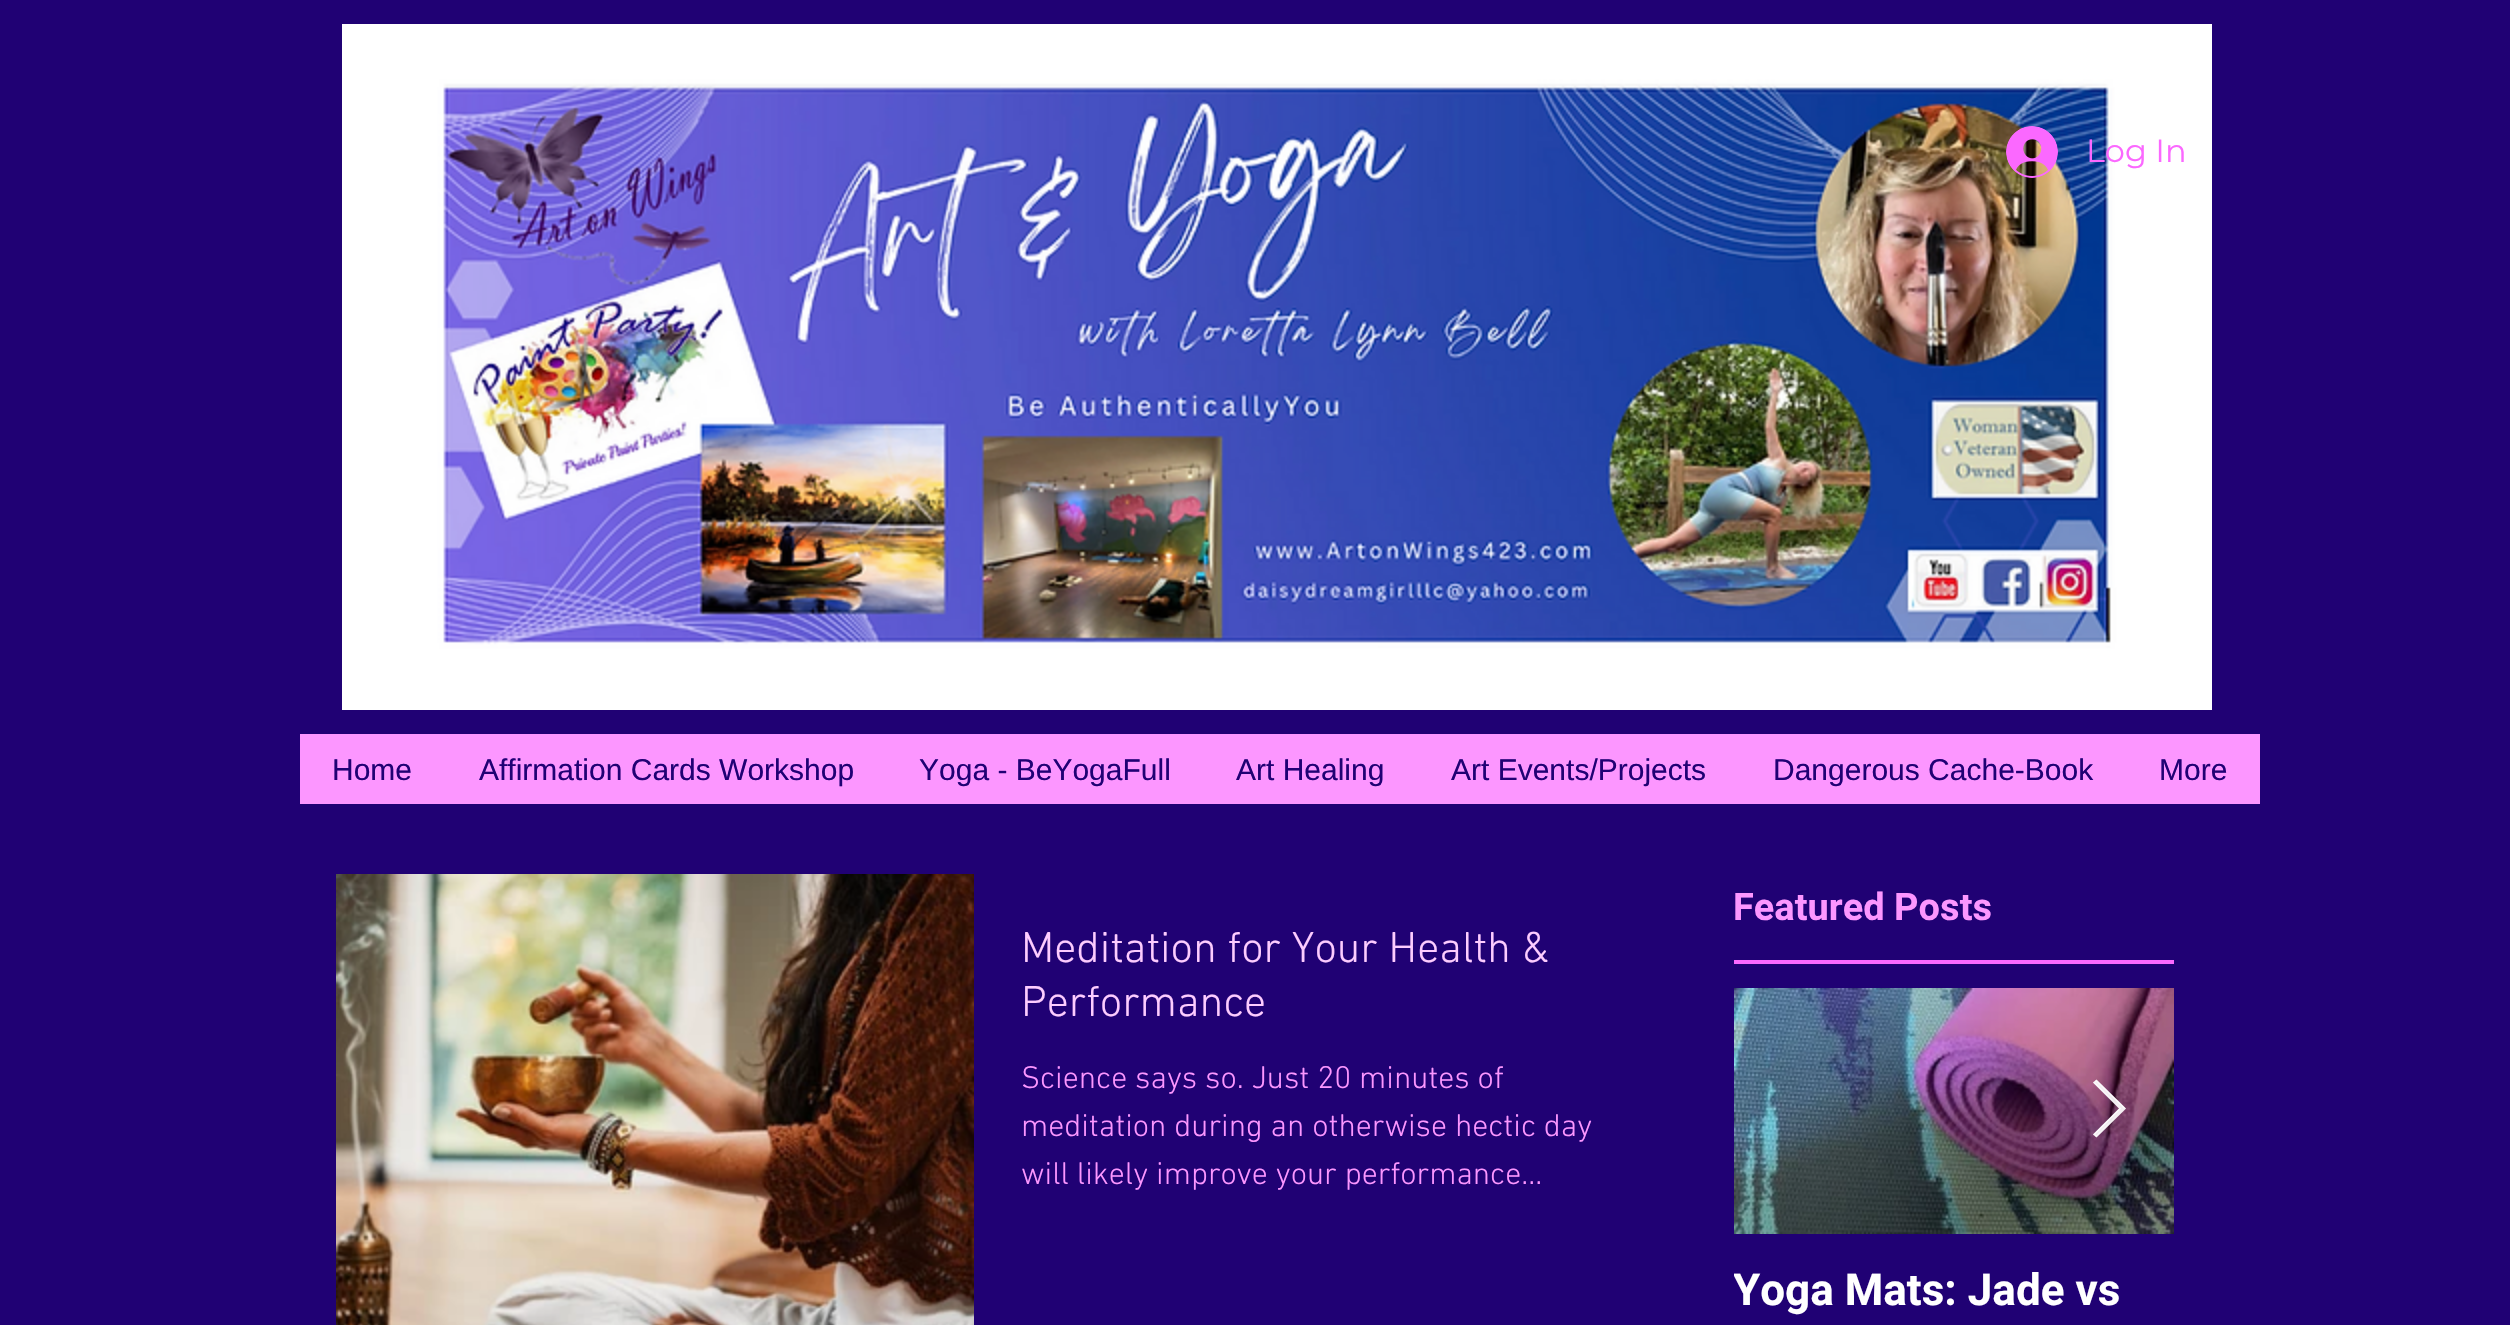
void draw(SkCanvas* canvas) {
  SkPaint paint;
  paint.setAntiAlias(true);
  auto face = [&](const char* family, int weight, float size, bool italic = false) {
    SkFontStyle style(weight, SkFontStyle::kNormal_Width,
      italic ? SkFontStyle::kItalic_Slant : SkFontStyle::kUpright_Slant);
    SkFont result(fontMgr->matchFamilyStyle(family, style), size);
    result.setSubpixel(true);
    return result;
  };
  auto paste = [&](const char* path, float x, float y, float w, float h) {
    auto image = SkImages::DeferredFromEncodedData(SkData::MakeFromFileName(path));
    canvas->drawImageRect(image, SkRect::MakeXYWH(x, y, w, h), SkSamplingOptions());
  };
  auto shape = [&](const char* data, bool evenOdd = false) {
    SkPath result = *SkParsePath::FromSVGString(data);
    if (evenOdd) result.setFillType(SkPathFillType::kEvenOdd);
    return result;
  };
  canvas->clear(0xff200174);
  paste("img/1.png", 342, 24, 1870, 686);
  paste("img/2.png", 2006, 126, 52, 52);
  paint.setColor(0xfffc96ff);
  canvas->drawRect(SkRect::MakeXYWH(300, 734, 1960, 70), paint);
  paste("img/3.png", 336, 874, 638, 451);
  paint.setColor(0xfffb68ff);
  canvas->drawRect(SkRect::MakeXYWH(1734, 960, 440, 4), paint);
  paste("img/4.png", 1734, 988, 440, 246);
  paint.setColor(0xe6ffffff);
  canvas->drawPath(shape("M2094 1083L2096 1080L2125 1108L2096 1137L2094 1134L2120 1108Z"), paint);
  paint.setStroke(true);
  paint.setStrokeWidth(1.6f);
  canvas->drawPath(shape("M2094 1082.5L2096.5 1080.5L2125 1108.5L2096.5 1136.5L2094 1134.5L2120 1108.5Z"), paint);
  auto f0 = face("Montserrat", 400, 32);
  paint.setStroke(false);
  paint.setColor(0xfffb68ff);
  canvas->drawString("Log In", 2086, 162, f0, paint);
  auto f1 = face("Liberation Sans", 400, 30);
  paint.setColor(0xff200174);
  {
    const struct { const char* s; float x, y; } items[] = {
      {"Home", 332, 780},
      {"Affirmation Cards Workshop", 479, 780},
      {"Yoga - BeYogaFull", 919, 780},
      {"Art Healing", 1236, 780},
      {"Art Events/Projects", 1451, 780},
      {"Dangerous Cache-Book", 1773, 780},
      {"More", 2159, 780},
    };
    for (auto [s, x, y] : items) {
      canvas->drawString(s, x, y, f1, paint);
    }
  }
  auto f2 = face("Roboto", 700, 38);
  paint.setColor(0xfffc96ff);
  canvas->drawString("Featured Posts", 1733, 920, f2, paint);
  auto f3 = face("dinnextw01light", 300, 44);
  paint.setColor(0xfffdccff);
  canvas->drawString("Meditation for Your Health &", 1021, 962, f3, paint);
  canvas->drawString("Performance", 1021, 1016, f3, paint);
  auto f4 = face("dinnextw01light", 300, 32);
  paint.setColor(0xfffc96ff);
  {
    const struct { const char* s; float x, y; } items[] = {
      {"Science says so. Just 20 minutes of", 1021, 1088},
      {"meditation during an otherwise hectic day", 1021, 1136},
      {"will likely improve your performance…", 1021, 1184},
    };
    for (auto [s, x, y] : items) {
      canvas->drawString(s, x, y, f4, paint);
    }
  }
  canvas->save();
  canvas->clipRect(SkRect::MakeXYWH(1734, 1266, 440, 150));
  auto f5 = face("Roboto", 700, 44);
  paint.setColor(0xffffffff);
  canvas->drawString("Yoga Mats: Jade vs", 1733, 1305, f5, paint);
  canvas->restore();
}
